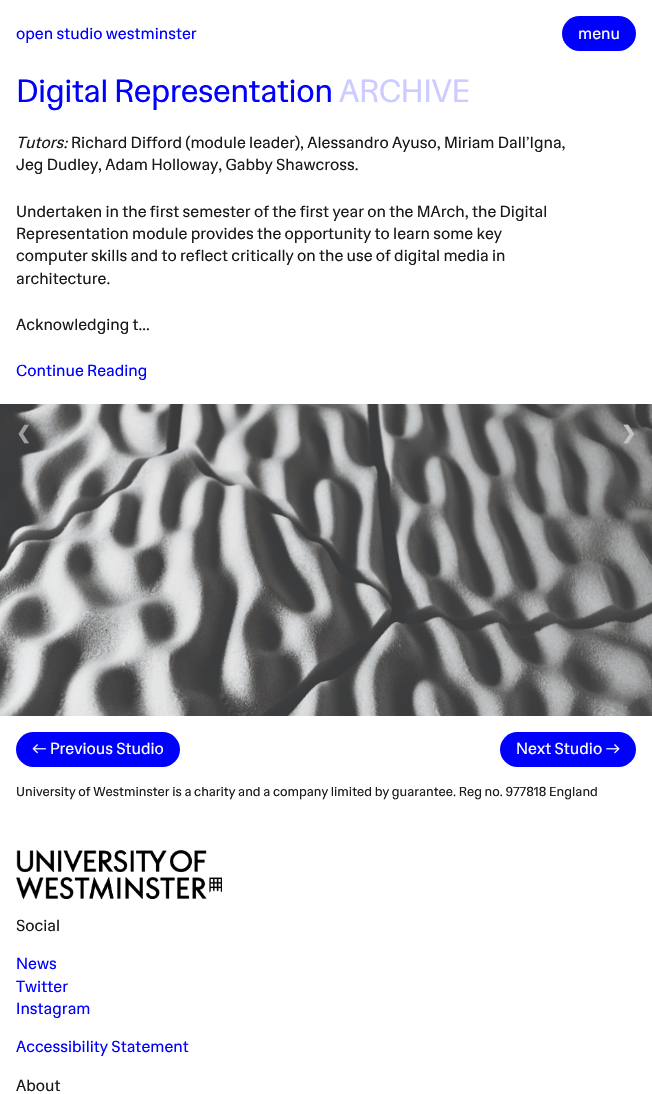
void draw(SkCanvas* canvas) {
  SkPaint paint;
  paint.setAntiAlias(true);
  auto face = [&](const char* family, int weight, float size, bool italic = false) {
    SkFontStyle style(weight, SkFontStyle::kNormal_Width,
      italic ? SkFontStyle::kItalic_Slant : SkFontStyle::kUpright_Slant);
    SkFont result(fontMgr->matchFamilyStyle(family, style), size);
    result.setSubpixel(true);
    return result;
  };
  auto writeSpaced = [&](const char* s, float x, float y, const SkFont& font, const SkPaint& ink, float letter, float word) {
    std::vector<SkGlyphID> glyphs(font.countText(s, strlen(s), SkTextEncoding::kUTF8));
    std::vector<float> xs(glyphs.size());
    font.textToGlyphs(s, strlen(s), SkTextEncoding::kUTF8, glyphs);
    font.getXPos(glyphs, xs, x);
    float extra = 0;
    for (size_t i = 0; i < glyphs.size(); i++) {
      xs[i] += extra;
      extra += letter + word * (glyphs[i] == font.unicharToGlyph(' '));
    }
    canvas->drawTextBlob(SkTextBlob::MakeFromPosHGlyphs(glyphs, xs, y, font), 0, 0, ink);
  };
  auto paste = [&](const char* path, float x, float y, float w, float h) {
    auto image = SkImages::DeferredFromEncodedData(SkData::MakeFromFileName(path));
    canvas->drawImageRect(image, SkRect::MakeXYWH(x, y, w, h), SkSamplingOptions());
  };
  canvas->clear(0xffffffff);
  paint.setColor(0xff0000ff);
  canvas->drawRoundRect(SkRect::MakeXYWH(562, 16, 74, 35), 17.5f, 17.5f, paint);
  paste("img/1.png", 0, 404, 652, 312);
  canvas->drawRoundRect(SkRect::MakeXYWH(16, 732, 164, 35), 17.5f, 17.5f, paint);
  canvas->drawRoundRect(SkRect::MakeXYWH(500, 732, 136, 35), 17.5f, 17.5f, paint);
  paste("img/2.png", 16, 850, 206, 49);
  auto f0 = face("Hedvig Letters Sans", 400, 16);
  canvas->drawString("open studio westminster", 16, 39, f0, paint);
  paint.setColor(0xffffffff);
  canvas->drawString("menu", 578, 39, f0, paint);
  auto f1 = face("Hedvig Letters Sans", 400, 32);
  paint.setColor(0xff0000ff);
  writeSpaced("Digital Representation", 16, 102, f1, paint, -0.5f, 0);
  paint.setColor(0xffccccff);
  writeSpaced("ARCHIVE", 339, 102, f1, paint, -0.5f, 0);
  auto f2 = face("Hedvig Letters Sans", 400, 16, true);
  paint.setColor(0xff191919);
  canvas->drawString("Tutors:", 16, 148, f2, paint);
  {
    const struct { const char* s; float x, y; } items[] = {
      {"Richard Difford (module leader), Alessandro Ayuso, Miriam Dall’Igna,", 71, 148},
      {"Jeg Dudley, Adam Holloway, Gabby Shawcross.", 16, 170},
      {"Undertaken in the first semester of the first year on the MArch, the Digital", 16, 217},
      {"Representation module provides the opportunity to learn some key", 16, 239},
      {"computer skills and to reflect critically on the use of digital media in", 16, 261},
      {"architecture.", 16, 284},
      {"Acknowledging t...", 16, 330},
    };
    for (auto [s, x, y] : items) {
      canvas->drawString(s, x, y, f0, paint);
    }
  }
  paint.setColor(0xff0000ff);
  canvas->drawString("Continue Reading", 16, 376, f0, paint);
  auto f3 = face("DejaVu Sans", 700, 18);
  paint.setColor(0xff9e9e9f);
  canvas->drawString("❮", 16, 439, f3, paint);
  paint.setColor(0xffc3c3c3);
  canvas->drawString("❯", 621, 439, f3, paint);
  paint.setColor(0xffffffff);
  canvas->drawString("← Previous Studio", 32, 754, f0, paint);
  canvas->drawString("Next Studio →", 516, 754, f0, paint);
  auto f4 = face("Hedvig Letters Sans", 400, 13);
  paint.setColor(0xff191919);
  canvas->drawString("University of Westminster is a charity and a company limited by guarantee. Reg no. 977818 England", 16, 796, f4, paint);
  canvas->drawString("Social", 16, 931, f0, paint);
  paint.setColor(0xff0000ff);
  {
    const struct { const char* s; float x, y; } items[] = {
      {"News", 16, 969},
      {"Twitter", 16, 992},
      {"Instagram", 16, 1014},
      {"Accessibility Statement", 16, 1052},
    };
    for (auto [s, x, y] : items) {
      canvas->drawString(s, x, y, f0, paint);
    }
  }
  paint.setColor(0xff191919);
  canvas->drawString("About", 16, 1091, f0, paint);
}
